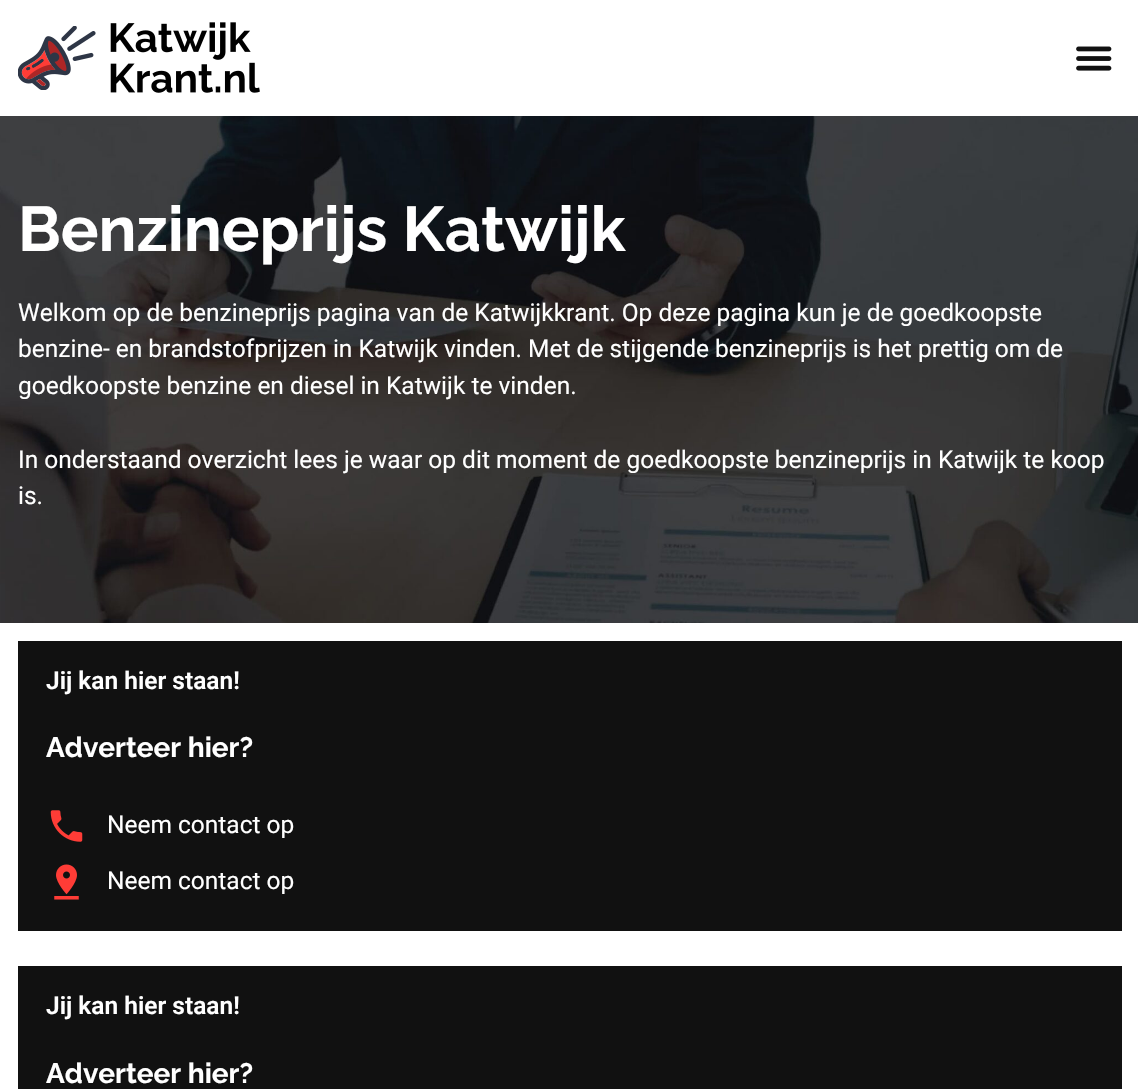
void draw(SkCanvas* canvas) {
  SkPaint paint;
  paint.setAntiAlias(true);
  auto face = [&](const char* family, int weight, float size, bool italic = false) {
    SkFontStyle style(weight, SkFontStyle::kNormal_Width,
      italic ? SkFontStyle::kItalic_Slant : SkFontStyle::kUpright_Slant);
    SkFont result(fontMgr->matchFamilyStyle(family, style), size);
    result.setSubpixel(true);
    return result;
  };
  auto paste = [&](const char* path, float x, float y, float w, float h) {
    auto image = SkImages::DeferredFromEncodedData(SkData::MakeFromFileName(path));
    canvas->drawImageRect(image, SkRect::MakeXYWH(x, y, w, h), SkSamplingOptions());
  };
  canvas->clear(0xffffffff);
  paste("img/1.png", 18, 22, 242, 71);
  paste("img/2.png", 1076, 46, 36, 25);
  paste("img/3.png", 0, 116, 1138, 507);
  paint.setColor(0xff111111);
  canvas->drawRect(SkRect::MakeXYWH(18, 641, 1104, 290), paint);
  paste("img/4.png", 50, 810, 33, 32);
  paste("img/5.png", 54, 864, 25, 36);
  canvas->drawRect(SkRect::MakeXYWH(18, 966, 1104, 123), paint);
  auto f0 = face("Raleway", 700, 63);
  paint.setColor(0xffffffff);
  canvas->drawString("Benzineprijs Katwijk", 18, 251, f0, paint);
  auto f1 = face("Roboto", 400, 24.5f);
  {
    const struct { const char* s; float x, y; } items[] = {
      {"Welkom op de benzineprijs pagina van de Katwijkkrant. Op deze pagina kun je de goedkoopste", 18, 321},
      {"benzine- en brandstofprijzen in Katwijk vinden. Met de stijgende benzineprijs is het prettig om de", 18, 357},
      {"goedkoopste benzine en diesel in Katwijk te vinden.", 18, 394},
      {"In onderstaand overzicht lees je waar op dit moment de goedkoopste benzineprijs in Katwijk te koop", 18, 468},
      {"is.", 18, 504},
    };
    for (auto [s, x, y] : items) {
      canvas->drawString(s, x, y, f1, paint);
    }
  }
  auto f2 = face("Roboto", 600, 24.5f);
  canvas->drawString("Jij kan hier staan!", 46, 689, f2, paint);
  auto f3 = face("Raleway", 700, 28);
  canvas->drawString("Adverteer hier?", 46, 757, f3, paint);
  canvas->drawString("Neem contact op", 107, 833, f1, paint);
  canvas->drawString("Neem contact op", 107, 889, f1, paint);
  canvas->drawString("Jij kan hier staan!", 46, 1014, f2, paint);
  canvas->drawString("Adverteer hier?", 46, 1083, f3, paint);
}
